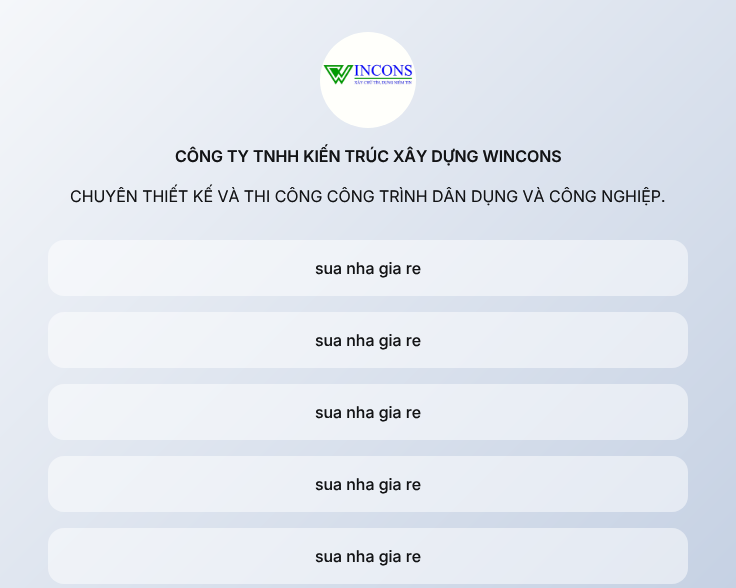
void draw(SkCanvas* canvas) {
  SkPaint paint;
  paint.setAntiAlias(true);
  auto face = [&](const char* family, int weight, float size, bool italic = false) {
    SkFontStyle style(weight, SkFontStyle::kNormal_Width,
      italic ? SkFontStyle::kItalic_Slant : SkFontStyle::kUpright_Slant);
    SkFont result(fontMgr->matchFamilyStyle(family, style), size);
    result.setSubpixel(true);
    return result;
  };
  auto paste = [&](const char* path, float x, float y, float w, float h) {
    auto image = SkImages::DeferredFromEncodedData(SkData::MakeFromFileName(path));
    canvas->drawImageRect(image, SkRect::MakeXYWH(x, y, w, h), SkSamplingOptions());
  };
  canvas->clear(0xffffffff);
  {
    const SkColor colors[] = {0xfff5f7fa, 0xffc3cfe2};
    const float stops[] = {0, 1};
    const SkPoint ends[] = {{18, -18}, {718, 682}};
    paint.setShader(SkGradientShader::MakeLinear(ends, colors, stops, 2, SkTileMode::kClamp));
    paint.setAlpha(255);
  }
  canvas->drawRect(SkRect::MakeXYWH(0, 0, 736, 588), paint);
  paste("img/1.png", 320, 32, 96, 96);
  paint.setShader(nullptr);
  paint.setColor(0x80ffffff);
  canvas->drawRoundRect(SkRect::MakeXYWH(48, 240, 640, 56), 16, 16, paint);
  canvas->drawRoundRect(SkRect::MakeXYWH(48, 312, 640, 56), 16, 16, paint);
  canvas->drawRoundRect(SkRect::MakeXYWH(48, 384, 640, 56), 16, 16, paint);
  canvas->drawRoundRect(SkRect::MakeXYWH(48, 456, 640, 56), 16, 16, paint);
  canvas->drawRoundRect(SkRect::MakeXYWH(48, 528, 640, 56), 16, 16, paint);
  auto f0 = face("Inter", 600, 16);
  paint.setColor(0xff131416);
  canvas->drawString("CÔNG TY TNHH KIẾN TRÚC XÂY DỰNG WINCONS", 175, 162, f0, paint);
  auto f1 = face("Inter", 400, 16);
  canvas->drawString("CHUYÊN THIẾT KẾ VÀ THI CÔNG CÔNG TRÌNH DÂN DỤNG VÀ CÔNG NGHIỆP.", 70, 202, f1, paint);
  auto f2 = face("Inter", 500, 16);
  {
    const struct { const char* s; float x, y; } items[] = {
      {"sua nha gia re", 315, 274},
      {"sua nha gia re", 315, 346},
      {"sua nha gia re", 315, 418},
      {"sua nha gia re", 315, 490},
      {"sua nha gia re", 315, 562},
    };
    for (auto [s, x, y] : items) {
      canvas->drawString(s, x, y, f2, paint);
    }
  }
}
